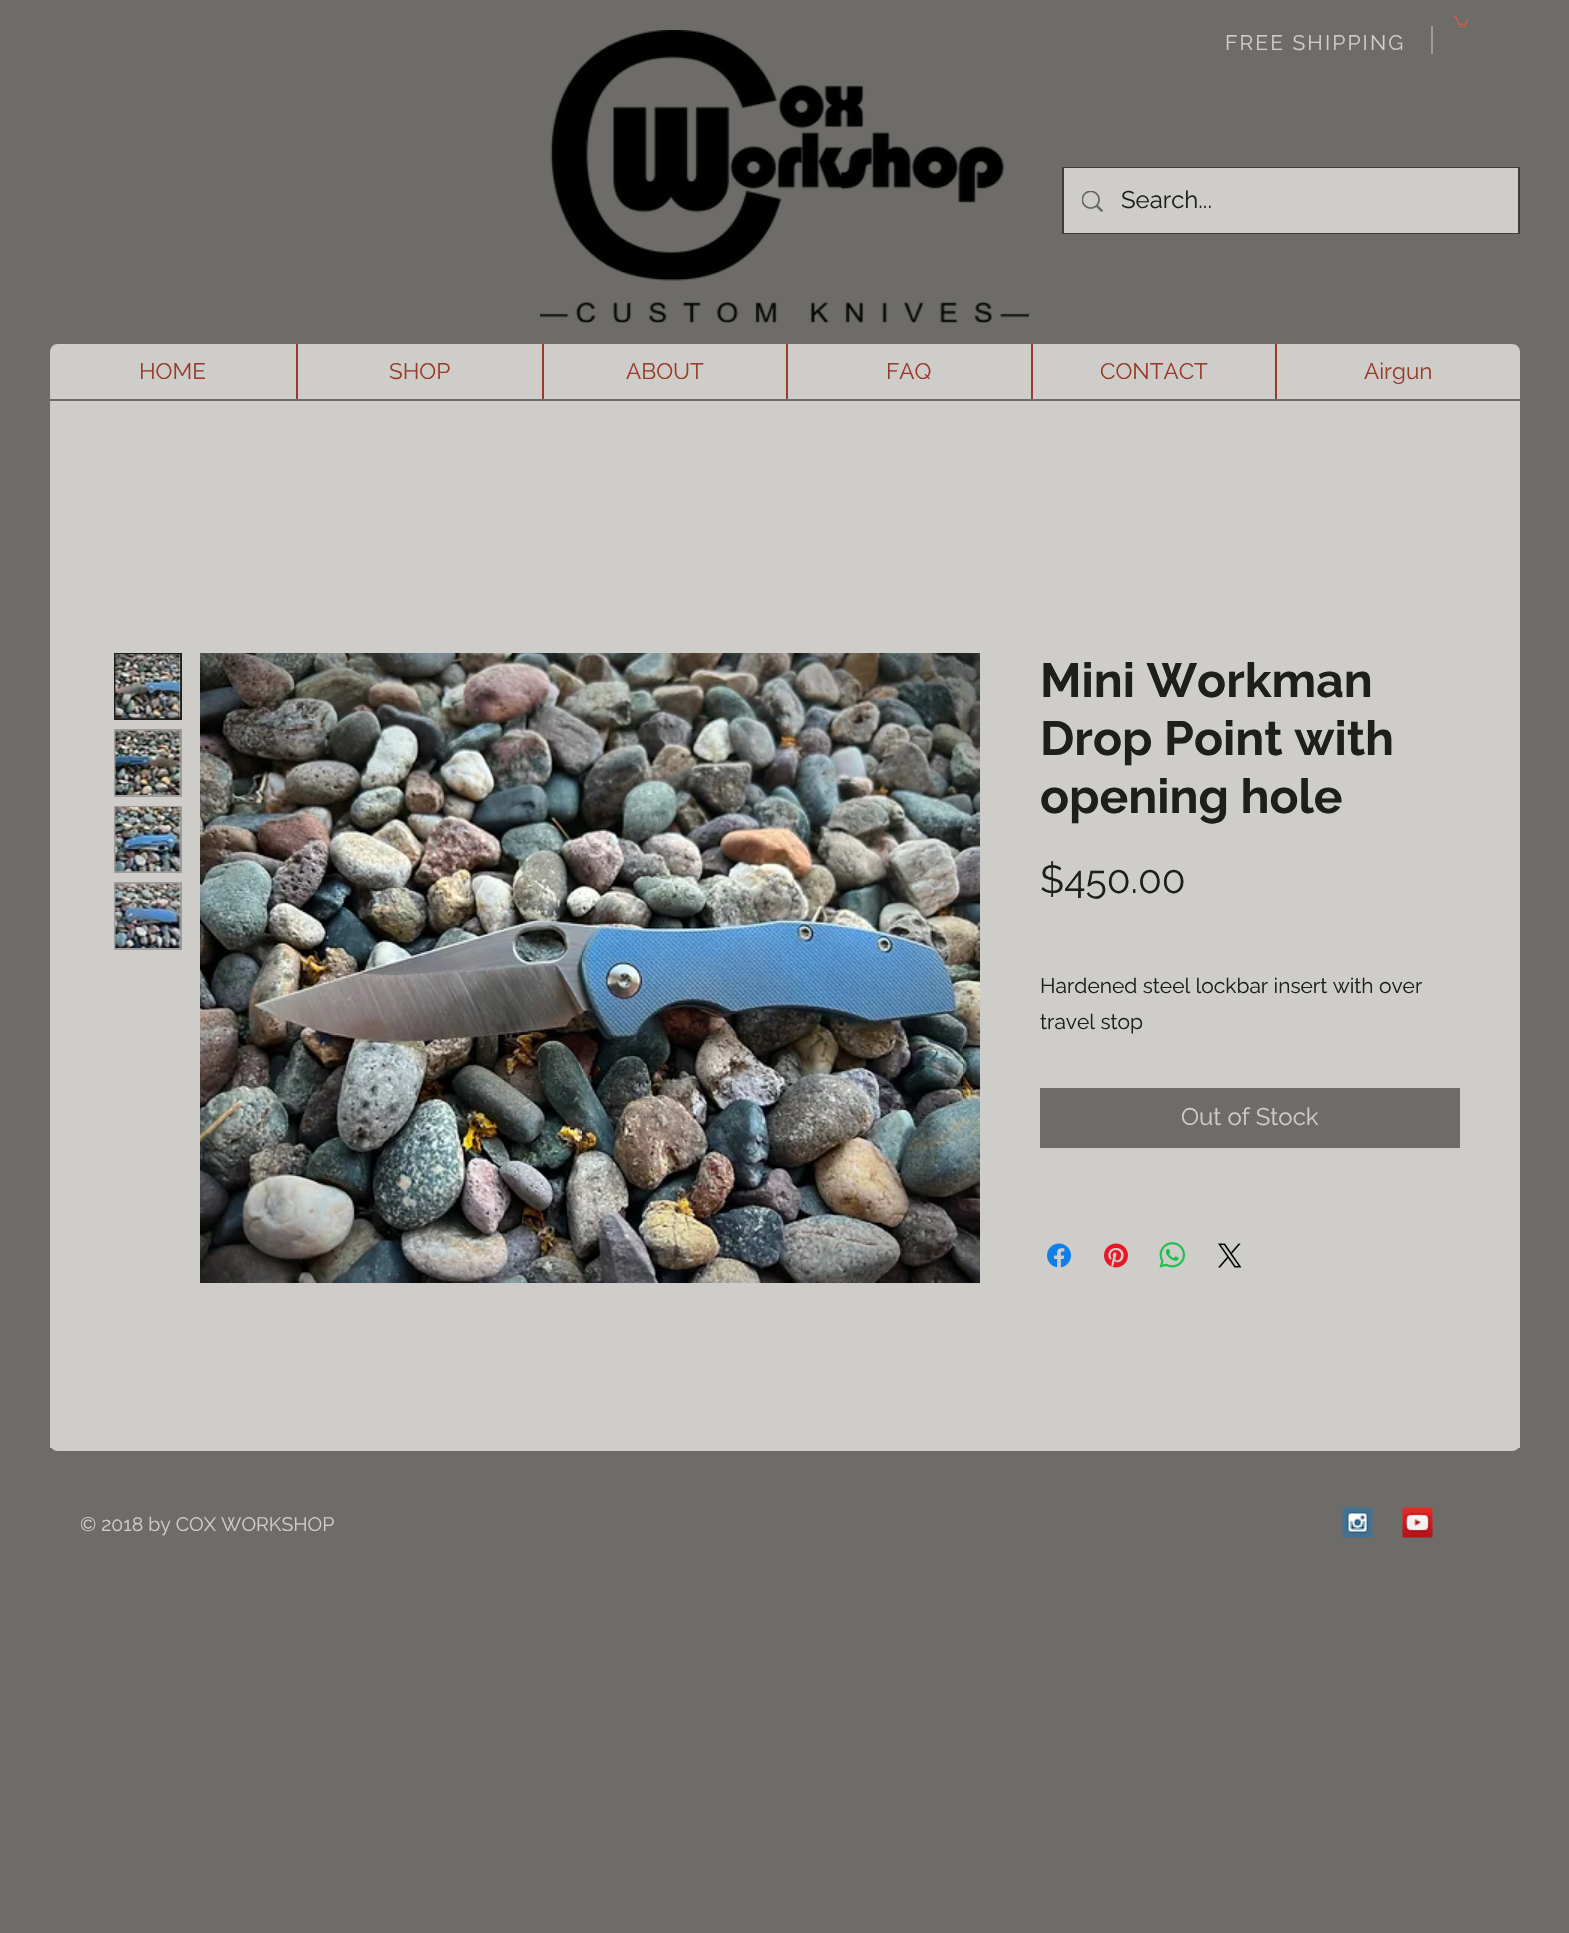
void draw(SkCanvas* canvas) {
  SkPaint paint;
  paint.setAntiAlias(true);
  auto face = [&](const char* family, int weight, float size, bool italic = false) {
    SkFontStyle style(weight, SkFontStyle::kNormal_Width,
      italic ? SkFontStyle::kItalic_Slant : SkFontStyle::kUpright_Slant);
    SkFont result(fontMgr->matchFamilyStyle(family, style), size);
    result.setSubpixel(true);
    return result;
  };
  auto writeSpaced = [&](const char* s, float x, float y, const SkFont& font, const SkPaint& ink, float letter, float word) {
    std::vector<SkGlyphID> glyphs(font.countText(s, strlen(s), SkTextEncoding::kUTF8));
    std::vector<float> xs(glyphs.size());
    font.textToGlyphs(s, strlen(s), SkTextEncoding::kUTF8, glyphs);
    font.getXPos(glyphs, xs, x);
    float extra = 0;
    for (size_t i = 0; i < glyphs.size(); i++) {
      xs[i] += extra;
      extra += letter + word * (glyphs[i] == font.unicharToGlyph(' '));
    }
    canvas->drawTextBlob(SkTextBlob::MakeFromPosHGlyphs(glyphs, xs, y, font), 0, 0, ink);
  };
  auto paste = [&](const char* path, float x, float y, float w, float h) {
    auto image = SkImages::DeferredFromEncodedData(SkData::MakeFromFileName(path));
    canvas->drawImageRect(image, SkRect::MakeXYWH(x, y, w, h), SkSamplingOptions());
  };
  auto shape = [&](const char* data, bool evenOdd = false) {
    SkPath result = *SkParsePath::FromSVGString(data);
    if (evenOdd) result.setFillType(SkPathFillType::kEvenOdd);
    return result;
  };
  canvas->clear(0xff6d6c68);
  paste("img/1.png", 1453, 16, 16, 12);
  paste("img/2.png", 540, 30, 489, 293);
  paint.setColor(0xff9e9d99);
  canvas->drawRect(SkRect::MakeXYWH(1431, 26, 2, 28), paint);
  paint.setStroke(true);
  paint.setStrokeWidth(2);
  paint.setColor(0xff3e3d3a);
  canvas->drawRect(SkRect::MakeXYWH(1063, 168, 456, 65), paint);
  paint.setStroke(false);
  paint.setColor(0xffcecdc9);
  canvas->drawRect(SkRect::MakeXYWH(1064, 168, 454, 65), paint);
  paste("img/3.png", 1082, 191, 21, 21);
  canvas->drawPath(shape("M58 344H1512C1516.5 344 1520 347.5 1520 352V399H50V352C50 347.5 53.5 344 58 344Z"), paint);
  {
    const struct { float x, y, w, h; SkColor color; } items[] = {
      {296, 344, 2, 55, 0xff9a3c2b},
      {542, 344, 2, 55, 0xff9a3c2b},
      {786, 344, 2, 55, 0xff9a3c2b},
      {1031, 344, 2, 55, 0xff9a3c2b},
      {1275, 344, 2, 55, 0xff9a3c2b},
    };
    for (auto [x, y, w, h, color] : items) {
      paint.setColor(color);
      canvas->drawRect(SkRect::MakeXYWH(x, y, w, h), paint);
    }
  }
  paint.setColor(0xffcecdc9);
  canvas->drawPath(shape("M50 401H1520V1443C1520 1447.5 1516.5 1451 1512 1451H58C53.5 1451 50 1447.5 50 1443Z"), paint);
  canvas->drawRect(SkRect::MakeXYWH(50, 1443, 1470, 5), paint);
  paint.setStroke(true);
  paint.setColor(0xff1e1e1b);
  canvas->drawRect(SkRect::MakeXYWH(115, 654, 66, 65), paint);
  paste("img/4.png", 115, 654, 66, 65);
  paint.setColor(0xff9e9d99);
  canvas->drawRect(SkRect::MakeXYWH(115, 730, 66, 66), paint);
  paste("img/5.png", 115, 730, 66, 65);
  canvas->drawRect(SkRect::MakeXYWH(115, 807, 66, 65), paint);
  paste("img/6.png", 115, 807, 66, 65);
  canvas->drawRect(SkRect::MakeXYWH(115, 883, 66, 66), paint);
  paste("img/7.png", 115, 883, 66, 65);
  paste("img/8.png", 200, 653, 780, 630);
  paint.setStroke(false);
  paint.setColor(0xff6d6c68);
  canvas->drawRect(SkRect::MakeXYWH(1040, 1088, 420, 60), paint);
  paste("img/9.png", 1047, 1243, 24, 25);
  paste("img/10.png", 1104, 1243, 24, 25);
  paste("img/11.png", 1159, 1242, 26, 26);
  paste("img/12.png", 1218, 1243, 24, 25);
  paste("img/13.png", 1342, 1507, 31, 31);
  paste("img/14.png", 1402, 1507, 31, 31);
  auto f0 = face("Raleway", 400, 21);
  paint.setColor(0xffcecdc9);
  writeSpaced("FREE SHIPPING", 1225, 50, f0, paint, 2.1f, 0);
  auto f1 = face("Raleway", 400, 24);
  paint.setColor(0xff1e1e1b);
  canvas->drawString("Search...", 1121, 208, f1, paint);
  auto f2 = face("Raleway", 400, 22.5f);
  paint.setColor(0xff9a3c2b);
  {
    const struct { const char* s; float x, y; } items[] = {
      {"HOME", 139, 379},
      {"SHOP", 389, 379},
      {"ABOUT", 626, 379},
      {"FAQ", 886, 379},
      {"CONTACT", 1100, 379},
      {"Airgun", 1364, 379},
    };
    for (auto [s, x, y] : items) {
      canvas->drawString(s, x, y, f2, paint);
    }
  }
  auto f3 = face("Raleway", 700, 48);
  paint.setColor(0xff1e1e1b);
  {
    const struct { const char* s; float x, y; } items[] = {
      {"Mini Workman", 1040, 697},
      {"Drop Point with", 1040, 755},
      {"opening hole", 1040, 813},
    };
    for (auto [s, x, y] : items) {
      canvas->drawString(s, x, y, f3, paint);
    }
  }
  auto f4 = face("Raleway", 400, 39);
  canvas->drawString("$450.00", 1040, 893, f4, paint);
  canvas->drawString("Hardened steel lockbar insert with over", 1040, 993, f0, paint);
  canvas->drawString("travel stop", 1040, 1029, f0, paint);
  paint.setColor(0xffcecdc9);
  canvas->drawString("Out of Stock", 1181, 1125, f1, paint);
  auto f5 = face("Raleway", 400, 19.5f);
  canvas->drawString("© 2018 by COX WORKSHOP", 80, 1531, f5, paint);
}
